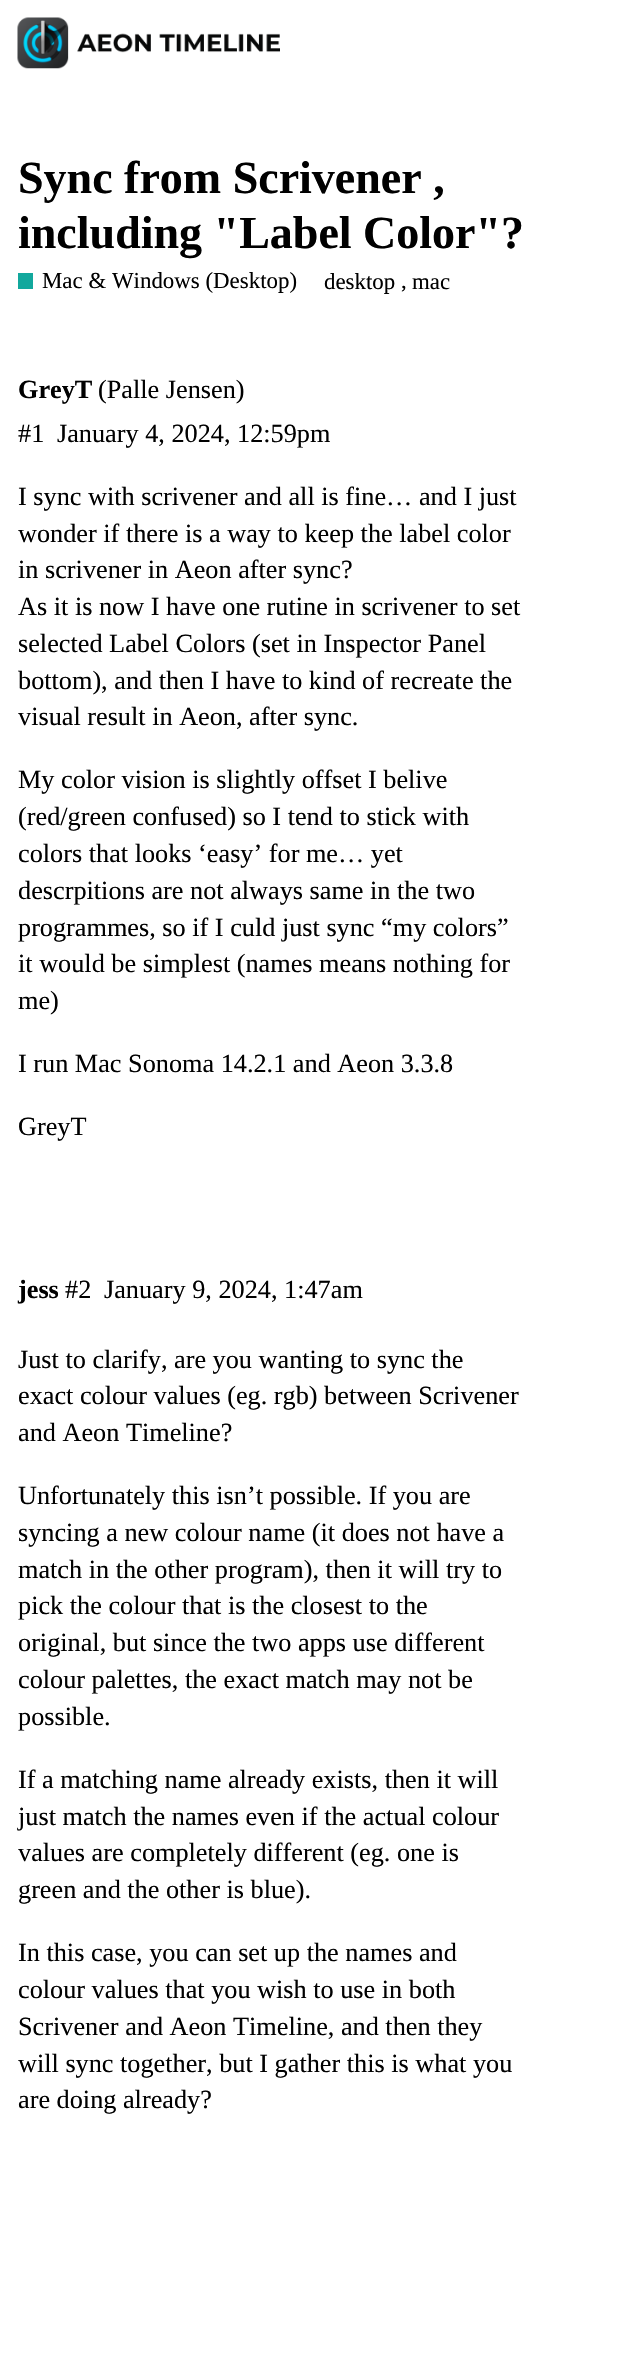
void draw(SkCanvas* canvas) {
  SkPaint paint;
  paint.setAntiAlias(true);
  auto face = [&](const char* family, int weight, float size, bool italic = false) {
    SkFontStyle style(weight, SkFontStyle::kNormal_Width,
      italic ? SkFontStyle::kItalic_Slant : SkFontStyle::kUpright_Slant);
    SkFont result(fontMgr->matchFamilyStyle(family, style), size);
    result.setSubpixel(true);
    return result;
  };
  auto paste = [&](const char* path, float x, float y, float w, float h) {
    auto image = SkImages::DeferredFromEncodedData(SkData::MakeFromFileName(path));
    canvas->drawImageRect(image, SkRect::MakeXYWH(x, y, w, h), SkSamplingOptions());
  };
  canvas->clear(0xffffffff);
  paste("img/1.png", 17, 17, 263, 52);
  paint.setColor(0xff12a89d);
  canvas->drawRect(SkRect::MakeXYWH(18, 273, 15, 16), paint);
  auto f0 = face("Liberation Serif", 700, 46);
  paint.setColor(0xff000000);
  canvas->drawString("Sync from Scrivener ,", 18, 193, f0, paint);
  canvas->drawString("including \"Label Color\"?", 18, 248, f0, paint);
  auto f1 = face("Liberation Serif", 400, 22.9f);
  {
    const struct { const char* s; float x, y; } items[] = {
      {"Mac & Windows (Desktop)", 42, 288},
      {"desktop", 324, 289},
      {",", 401, 288},
      {"mac", 412, 289},
    };
    for (auto [s, x, y] : items) {
      canvas->drawString(s, x, y, f1, paint);
    }
  }
  auto f2 = face("Liberation Serif", 700, 26.25f);
  canvas->drawString("GreyT", 18, 398, f2, paint);
  auto f3 = face("Liberation Serif", 400, 26.25f);
  {
    const struct { const char* s; float x, y; } items[] = {
      {"(Palle Jensen)", 98, 398},
      {"#1", 18, 442},
      {"January 4, 2024, 12:59pm", 57, 442},
      {"I sync with scrivener and all is fine… and I just", 18, 505},
      {"wonder if there is a way to keep the label color", 18, 542},
      {"in scrivener in Aeon after sync?", 18, 578},
      {"As it is now I have one rutine in scrivener to set", 18, 615},
      {"selected Label Colors (set in Inspector Panel", 18, 652},
      {"bottom), and then I have to kind of recreate the", 18, 689},
      {"visual result in Aeon, after sync.", 18, 725},
      {"My color vision is slightly offset I belive", 18, 788},
      {"(red/green confused) so I tend to stick with", 18, 825},
      {"colors that looks ‘easy’ for me… yet", 18, 862},
      {"descrpitions are not always same in the two", 18, 899},
      {"programmes, so if I culd just sync “my colors”", 18, 936},
      {"it would be simplest (names means nothing for", 18, 972},
      {"me)", 18, 1009},
      {"I run Mac Sonoma 14.2.1 and Aeon 3.3.8", 18, 1072},
      {"GreyT", 18, 1135},
    };
    for (auto [s, x, y] : items) {
      canvas->drawString(s, x, y, f3, paint);
    }
  }
  canvas->drawString("jess", 18, 1298, f2, paint);
  {
    const struct { const char* s; float x, y; } items[] = {
      {"#2", 65, 1298},
      {"January 9, 2024, 1:47am", 104, 1298},
      {"Just to clarify, are you wanting to sync the", 18, 1368},
      {"exact colour values (eg. rgb) between Scrivener", 18, 1404},
      {"and Aeon Timeline?", 18, 1441},
      {"Unfortunately this isn’t possible. If you are", 18, 1504},
      {"syncing a new colour name (it does not have a", 18, 1541},
      {"match in the other program), then it will try to", 18, 1578},
      {"pick the colour that is the closest to the", 18, 1614},
      {"original, but since the two apps use different", 18, 1651},
      {"colour palettes, the exact match may not be", 18, 1688},
      {"possible.", 18, 1725},
      {"If a matching name already exists, then it will", 18, 1788},
      {"just match the names even if the actual colour", 18, 1825},
      {"values are completely different (eg. one is", 18, 1861},
      {"green and the other is blue).", 18, 1898},
      {"In this case, you can set up the names and", 18, 1961},
      {"colour values that you wish to use in both", 18, 1998},
      {"Scrivener and Aeon Timeline, and then they", 18, 2035},
      {"will sync together, but I gather this is what you", 18, 2072},
      {"are doing already?", 18, 2108},
    };
    for (auto [s, x, y] : items) {
      canvas->drawString(s, x, y, f3, paint);
    }
  }
}
